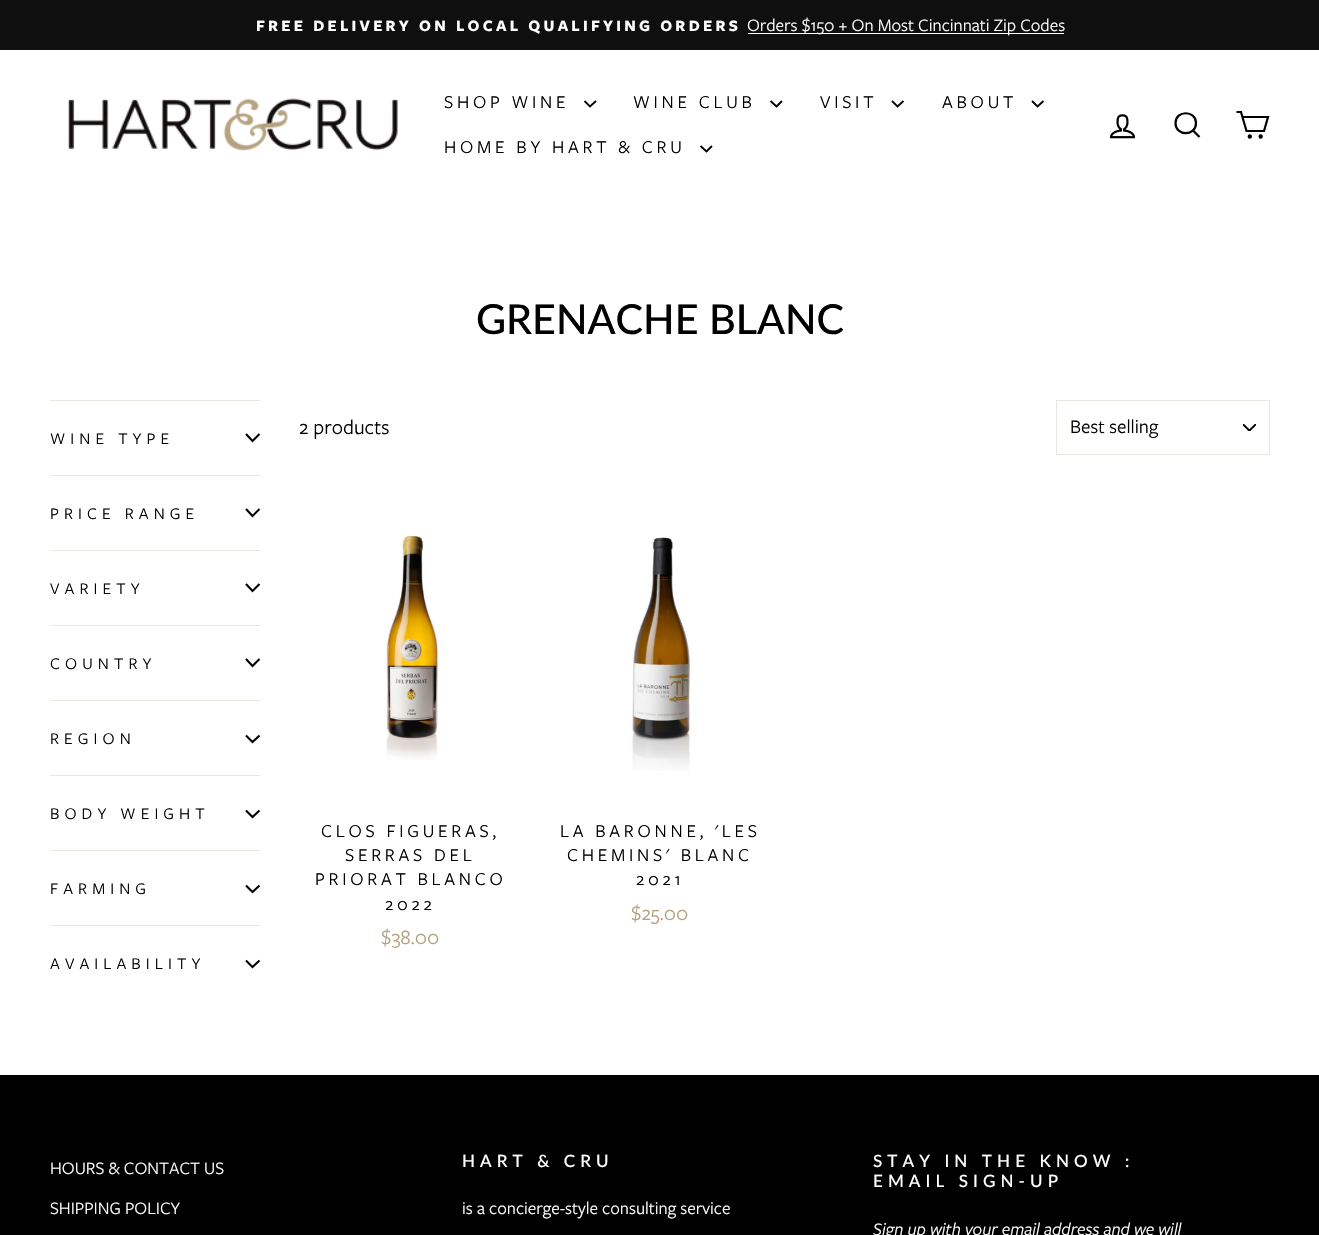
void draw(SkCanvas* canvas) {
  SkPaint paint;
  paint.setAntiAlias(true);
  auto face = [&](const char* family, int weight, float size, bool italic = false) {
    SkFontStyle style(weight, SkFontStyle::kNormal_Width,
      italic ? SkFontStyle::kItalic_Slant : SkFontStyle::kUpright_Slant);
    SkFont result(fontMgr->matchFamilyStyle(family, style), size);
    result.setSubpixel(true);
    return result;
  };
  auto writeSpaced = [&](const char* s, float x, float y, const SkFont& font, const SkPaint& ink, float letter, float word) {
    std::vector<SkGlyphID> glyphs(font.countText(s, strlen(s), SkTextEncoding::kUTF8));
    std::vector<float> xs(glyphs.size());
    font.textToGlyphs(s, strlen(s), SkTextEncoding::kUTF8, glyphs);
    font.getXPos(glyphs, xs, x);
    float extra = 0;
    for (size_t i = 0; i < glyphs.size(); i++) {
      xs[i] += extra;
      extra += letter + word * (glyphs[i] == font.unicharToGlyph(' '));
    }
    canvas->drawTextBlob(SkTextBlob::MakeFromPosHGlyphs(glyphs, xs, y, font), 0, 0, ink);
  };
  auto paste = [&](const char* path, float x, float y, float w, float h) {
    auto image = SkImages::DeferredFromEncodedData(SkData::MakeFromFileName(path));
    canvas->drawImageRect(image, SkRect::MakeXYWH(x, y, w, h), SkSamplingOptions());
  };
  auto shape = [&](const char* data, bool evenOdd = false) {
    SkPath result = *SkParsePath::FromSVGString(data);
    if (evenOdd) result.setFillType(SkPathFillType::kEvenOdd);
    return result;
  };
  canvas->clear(0xffffffff);
  paint.setColor(0xff0f0f0f);
  canvas->drawRect(SkRect::MakeXYWH(0, 0, 1319, 50), paint);
  paint.setColor(0xffffffff);
  canvas->drawRect(SkRect::MakeXYWH(748, 33, 316, 1), paint);
  paste("img/1.png", 68, 98, 330, 53);
  paint.setStroke(true);
  paint.setStrokeWidth(1.8f);
  paint.setColor(0xff000000);
  canvas->drawPath(shape("M584.5 101L590 106.5L596 101"), paint);
  canvas->drawPath(shape("M770.5 101L776.5 106.5L782 101"), paint);
  canvas->drawPath(shape("M892 101L897.5 106.5L903.5 101"), paint);
  canvas->drawPath(shape("M1032 101L1037.5 106.5L1043.5 101"), paint);
  canvas->drawPath(shape("M700.5 146L706.5 151.5L712 146"), paint);
  paste("img/2.png", 1110, 114, 25, 25);
  paint.setStrokeWidth(2.2f);
  canvas->drawPath(shape("M1196 123C1196 136.5 1175.5 136.5 1175.5 123C1175.5 110 1196 110 1196 123ZM1199.5 137L1193 130.5"), paint);
  canvas->drawPath(shape("M1242.5 117H1268L1264 131H1246.5L1241 112H1236.5"), paint);
  canvas->drawCircle(1249.8f, 136.5f, 1.1f, paint);
  canvas->drawCircle(1260.7f, 136.5f, 1.1f, paint);
  paint.setStroke(false);
  paint.setColor(0xffe8e8e1);
  canvas->drawRect(SkRect::MakeXYWH(50, 400, 210, 1), paint);
  paint.setStroke(true);
  paint.setStrokeWidth(2.1f);
  paint.setColor(0xff000000);
  canvas->drawPath(shape("M246 434L252.5 441L259.5 434"), paint);
  paint.setStroke(false);
  paint.setColor(0xffe8e8e1);
  canvas->drawRect(SkRect::MakeXYWH(50, 475, 210, 1), paint);
  paint.setStroke(true);
  paint.setColor(0xff000000);
  canvas->drawPath(shape("M246 509L252.5 516L259.5 509"), paint);
  paint.setStroke(false);
  paint.setColor(0xffe8e8e1);
  canvas->drawRect(SkRect::MakeXYWH(50, 550, 210, 1), paint);
  paint.setStroke(true);
  paint.setColor(0xff000000);
  canvas->drawPath(shape("M246 584L252.5 591L259.5 584"), paint);
  paint.setStroke(false);
  paint.setColor(0xffe8e8e1);
  canvas->drawRect(SkRect::MakeXYWH(50, 625, 210, 1), paint);
  paint.setStroke(true);
  paint.setColor(0xff000000);
  canvas->drawPath(shape("M246 659L252.5 666L259.5 659"), paint);
  paint.setStroke(false);
  paint.setColor(0xffe8e8e1);
  canvas->drawRect(SkRect::MakeXYWH(50, 700, 210, 1), paint);
  paint.setStroke(true);
  paint.setColor(0xff000000);
  canvas->drawPath(shape("M246 735.5L252.5 742L259.5 735.5"), paint);
  paint.setStroke(false);
  paint.setColor(0xffe8e8e1);
  canvas->drawRect(SkRect::MakeXYWH(50, 775, 210, 1), paint);
  paint.setStroke(true);
  paint.setColor(0xff000000);
  canvas->drawPath(shape("M246 810.5L252.5 817L259.5 810.5"), paint);
  paint.setStroke(false);
  paint.setColor(0xffe8e8e1);
  canvas->drawRect(SkRect::MakeXYWH(50, 850, 210, 1), paint);
  paint.setStroke(true);
  paint.setColor(0xff000000);
  canvas->drawPath(shape("M246 885.5L252.5 892L259.5 885.5"), paint);
  paint.setStroke(false);
  paint.setColor(0xffe8e8e1);
  canvas->drawRect(SkRect::MakeXYWH(50, 925, 210, 1), paint);
  paint.setStroke(true);
  paint.setColor(0xff000000);
  canvas->drawPath(shape("M246 960.5L252.5 967L259.5 960.5"), paint);
  paste("img/3.png", 1243, 424, 13, 7);
  paint.setStrokeWidth(1);
  paint.setColor(0xffe8e8e1);
  canvas->drawRect(SkRect::MakeXYWH(1056.5f, 400.5f, 213, 54), paint);
  paste("img/4.png", 385, 533, 54, 227);
  paste("img/5.png", 631, 537, 61, 234);
  paint.setStroke(false);
  paint.setColor(0xff000000);
  canvas->drawRect(SkRect::MakeXYWH(0, 1075, 1319, 160), paint);
  auto f0 = face("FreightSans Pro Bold", 700, 16.25f);
  paint.setColor(0xffffffff);
  writeSpaced("FREE DELIVERY ON LOCAL QUALIFYING ORDERS", 256, 31, f0, paint, 3.25f, 0);
  auto f1 = face("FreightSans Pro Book", 400, 18.1f);
  canvas->drawString("Orders $150 + On Most Cincinnati Zip Codes", 747, 31, f1, paint);
  auto f2 = face("FreightSans Pro Book", 400, 18.75f);
  paint.setColor(0xff000000);
  {
    const struct { const char* s; float x, y; } items[] = {
      {"SHOP WINE", 444, 108},
      {"WINE CLUB", 633, 108},
      {"VISIT", 820, 108},
      {"ABOUT", 942, 108},
      {"HOME BY HART & CRU", 444, 153},
    };
    for (auto [s, x, y] : items) {
      writeSpaced(s, x, y, f2, paint, 3.75f, 0);
    }
  }
  auto f3 = face("Lato", 500, 41.25f);
  canvas->drawString("GRENACHE BLANC", 476, 334, f3, paint);
  auto f4 = face("FreightSans Pro Book", 400, 17);
  {
    const struct { const char* s; float x, y; } items[] = {
      {"WINE TYPE", 50, 444},
      {"PRICE RANGE", 50, 519},
      {"VARIETY", 50, 594},
      {"COUNTRY", 50, 669},
      {"REGION", 50, 744},
      {"BODY WEIGHT", 50, 819},
      {"FARMING", 50, 894},
      {"AVAILABILITY", 50, 969},
    };
    for (auto [s, x, y] : items) {
      writeSpaced(s, x, y, f4, paint, 5.1f, 0);
    }
  }
  auto f5 = face("FreightSans Pro Book", 400, 21.25f);
  canvas->drawString("2 products", 299, 434, f5, paint);
  auto f6 = face("FreightSans Pro Book", 400, 20);
  canvas->drawString("Best selling", 1070, 433, f6, paint);
  {
    const struct { const char* s; float x, y; } items[] = {
      {"CLOS FIGUERAS,", 321, 837},
      {"SERRAS DEL", 345, 861},
      {"PRIORAT BLANCO", 315, 885},
      {"2022", 385, 910},
    };
    for (auto [s, x, y] : items) {
      writeSpaced(s, x, y, f2, paint, 3.75f, 0);
    }
  }
  paint.setColor(0xffb3a17e);
  canvas->drawString("$38.00", 381, 944, f5, paint);
  paint.setColor(0xff000000);
  {
    const struct { const char* s; float x, y; } items[] = {
      {"LA BARONNE, 'LES", 560, 837},
      {"CHEMINS' BLANC", 567, 861},
      {"2021", 636, 885},
    };
    for (auto [s, x, y] : items) {
      writeSpaced(s, x, y, f2, paint, 3.75f, 0);
    }
  }
  paint.setColor(0xffb3a17e);
  canvas->drawString("$25.00", 631, 920, f5, paint);
  paint.setColor(0xffffffff);
  canvas->drawString("HOURS & CONTACT US", 50, 1174, f1, paint);
  canvas->drawString("SHIPPING POLICY", 50, 1214, f1, paint);
  auto f7 = face("Lato", 500, 17);
  writeSpaced("HART & CRU", 462, 1167, f7, paint, 5.1f, 0);
  canvas->drawString("is a concierge-style consulting service", 462, 1214, f1, paint);
  writeSpaced("STAY IN THE KNOW :", 873, 1167, f7, paint, 5.1f, 0);
  writeSpaced("EMAIL SIGN-UP", 873, 1187, f7, paint, 5.1f, 0);
  auto f8 = face("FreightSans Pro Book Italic", 400, 18.1f, true);
  canvas->drawString("Sign up with your email address and we will", 873, 1235, f8, paint);
}
